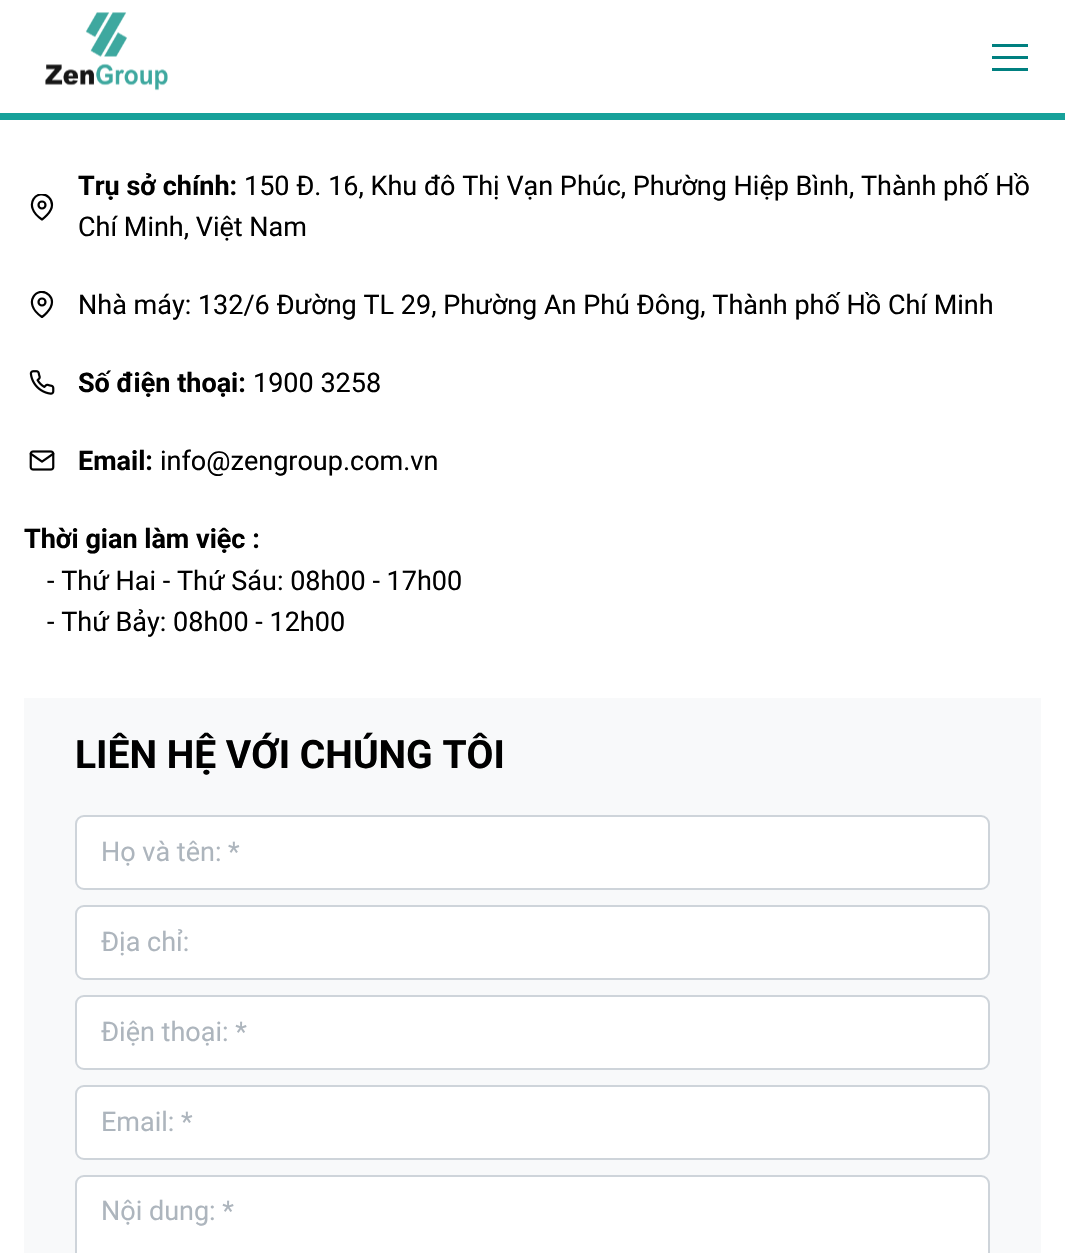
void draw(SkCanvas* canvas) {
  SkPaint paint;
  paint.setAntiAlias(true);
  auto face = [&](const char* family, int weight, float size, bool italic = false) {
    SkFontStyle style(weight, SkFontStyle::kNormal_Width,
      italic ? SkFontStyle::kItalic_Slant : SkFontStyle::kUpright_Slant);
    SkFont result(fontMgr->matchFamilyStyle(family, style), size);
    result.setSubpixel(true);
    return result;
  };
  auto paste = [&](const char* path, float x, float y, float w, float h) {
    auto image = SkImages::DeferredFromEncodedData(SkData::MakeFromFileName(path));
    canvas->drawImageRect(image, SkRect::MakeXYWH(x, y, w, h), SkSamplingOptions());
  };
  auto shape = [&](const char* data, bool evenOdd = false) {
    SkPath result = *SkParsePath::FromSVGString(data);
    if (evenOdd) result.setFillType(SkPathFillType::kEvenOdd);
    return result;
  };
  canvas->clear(0xffffffff);
  paint.setColor(0xff17a19a);
  canvas->drawRect(SkRect::MakeXYWH(0, 113, 1065, 7), paint);
  paste("img/1.png", 45, 12, 123, 79);
  {
    const struct { float x, y, w, h; SkColor color; } items[] = {
      {992, 56, 36, 3, 0xff008080},
      {992, 44, 36, 3, 0xff008080},
      {992, 68, 36, 3, 0xff008080},
    };
    for (auto [x, y, w, h, color] : items) {
      paint.setColor(color);
      canvas->drawRect(SkRect::MakeXYWH(x, y, w, h), paint);
    }
  }
  canvas->save();
  canvas->clipRect(SkRect::MakeXYWH(29, 194, 27, 27));
  paint.setStroke(true);
  paint.setStrokeWidth(2.2f);
  paint.setStrokeCap(SkPaint::kRound_Cap);
  paint.setStrokeJoin(SkPaint::kRound_Join);
  paint.setColor(0xff000000);
  canvas->drawPath(shape("M52 205C52 212.5 42 219.5 42 219.5C20.5 205 38.5 187 49 197.5C51 199.5 52 202 52 205Z"), paint);
  canvas->restore();
  paint.setStrokeCap(SkPaint::kButt_Cap);
  paint.setStrokeJoin(SkPaint::kMiter_Join);
  canvas->drawCircle(42, 205, 3.5f, paint);
  canvas->save();
  canvas->clipRect(SkRect::MakeXYWH(29, 291, 27, 27));
  paint.setStrokeCap(SkPaint::kRound_Cap);
  paint.setStrokeJoin(SkPaint::kRound_Join);
  canvas->drawPath(shape("M52 302C52 310 42 317 42 317C20.5 302.5 38.5 284.5 49 295C51 297 52 299.5 52 302Z"), paint);
  canvas->restore();
  paint.setStrokeCap(SkPaint::kButt_Cap);
  paint.setStrokeJoin(SkPaint::kMiter_Join);
  canvas->drawCircle(42, 302, 3.5f, paint);
  paste("img/2.png", 29, 370, 26, 25);
  paste("img/3.png", 29, 450, 26, 21);
  paint.setStroke(false);
  paint.setColor(0xfff8f9fa);
  canvas->drawRect(SkRect::MakeXYWH(24, 698, 1017, 555), paint);
  paint.setColor(0xffffffff);
  canvas->drawRoundRect(SkRect::MakeXYWH(76, 816, 913, 73), 8, 8, paint);
  paint.setStroke(true);
  paint.setStrokeWidth(2);
  paint.setColor(0xffced4da);
  canvas->drawRoundRect(SkRect::MakeXYWH(76, 816, 913, 73), 8, 8, paint);
  paint.setStroke(false);
  paint.setColor(0xffffffff);
  canvas->drawRoundRect(SkRect::MakeXYWH(76, 906, 913, 73), 8, 8, paint);
  paint.setStroke(true);
  paint.setColor(0xffced4da);
  canvas->drawRoundRect(SkRect::MakeXYWH(76, 906, 913, 73), 8, 8, paint);
  paint.setStroke(false);
  paint.setColor(0xffffffff);
  canvas->drawRoundRect(SkRect::MakeXYWH(76, 996, 913, 73), 8, 8, paint);
  paint.setStroke(true);
  paint.setColor(0xffced4da);
  canvas->drawRoundRect(SkRect::MakeXYWH(76, 996, 913, 73), 8, 8, paint);
  paint.setStroke(false);
  paint.setColor(0xffffffff);
  canvas->drawRoundRect(SkRect::MakeXYWH(76, 1086, 913, 73), 8, 8, paint);
  paint.setStroke(true);
  paint.setColor(0xffced4da);
  canvas->drawRoundRect(SkRect::MakeXYWH(76, 1086, 913, 73), 8, 8, paint);
  paint.setStroke(false);
  paint.setColor(0xffffffff);
  canvas->drawRoundRect(SkRect::MakeXYWH(76, 1176, 913, 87), 8, 8, paint);
  paint.setStroke(true);
  paint.setColor(0xffced4da);
  canvas->drawRoundRect(SkRect::MakeXYWH(76, 1176, 913, 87), 8, 8, paint);
  auto f0 = face("Roboto", 700, 27);
  paint.setStroke(false);
  paint.setColor(0xff000000);
  canvas->drawString("Trụ sở chính:", 78, 195, f0, paint);
  auto f1 = face("Roboto", 400, 27);
  {
    const struct { const char* s; float x, y; } items[] = {
      {"150 Đ. 16, Khu đô Thị Vạn Phúc, Phường Hiệp Bình, Thành phố Hồ", 244, 195},
      {"Chí Minh, Việt Nam", 78, 236},
      {"Nhà máy: 132/6 Đường TL 29, Phường An Phú Đông, Thành phố Hồ Chí Minh", 78, 314},
    };
    for (auto [s, x, y] : items) {
      canvas->drawString(s, x, y, f1, paint);
    }
  }
  canvas->drawString("Số điện thoại:", 78, 392, f0, paint);
  canvas->drawString("1900 3258", 253, 392, f1, paint);
  canvas->drawString("Email:", 78, 470, f0, paint);
  canvas->drawString("info@zengroup.com.vn", 160, 470, f1, paint);
  canvas->drawString("Thời gian làm việc :", 24, 548, f0, paint);
  canvas->drawString("- Thứ Hai - Thứ Sáu: 08h00 - 17h00", 47, 590, f1, paint);
  canvas->drawString("- Thứ Bảy: 08h00 - 12h00", 47, 631, f1, paint);
  auto f2 = face("Roboto", 700, 39);
  canvas->drawString("LIÊN HỆ VỚI CHÚNG TÔI", 75, 768, f2, paint);
  paint.setColor(0xffadb5bd);
  {
    const struct { const char* s; float x, y; } items[] = {
      {"Họ và tên: *", 101, 861},
      {"Địa chỉ:", 101, 951},
      {"Điện thoại: *", 101, 1041},
      {"Email: *", 101, 1131},
      {"Nội dung: *", 101, 1220},
    };
    for (auto [s, x, y] : items) {
      canvas->drawString(s, x, y, f1, paint);
    }
  }
}
